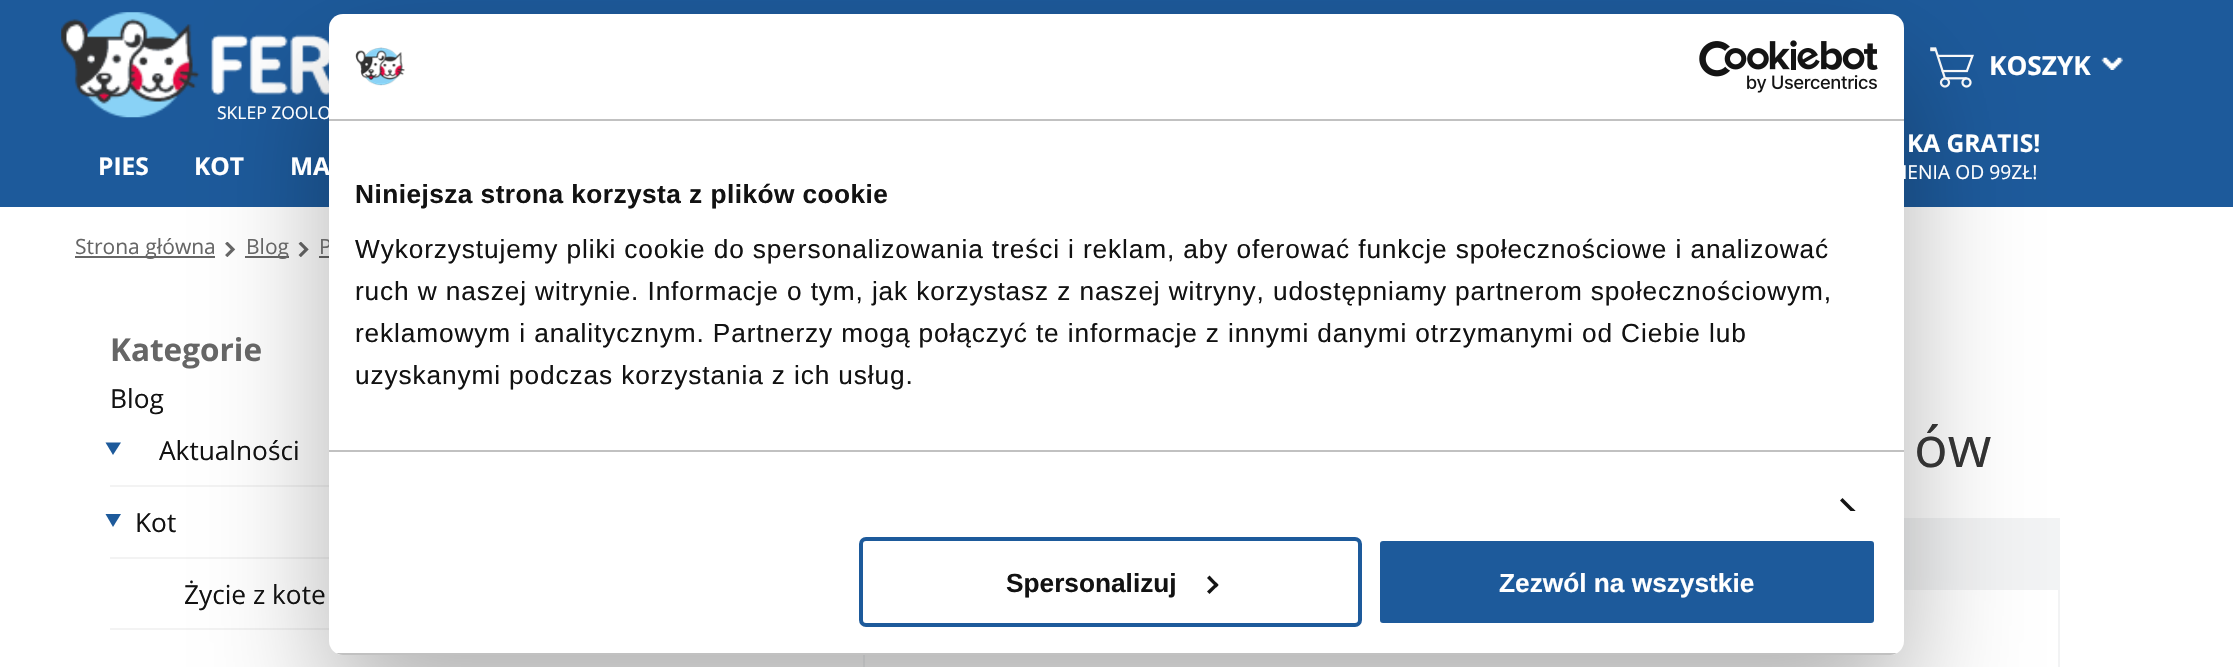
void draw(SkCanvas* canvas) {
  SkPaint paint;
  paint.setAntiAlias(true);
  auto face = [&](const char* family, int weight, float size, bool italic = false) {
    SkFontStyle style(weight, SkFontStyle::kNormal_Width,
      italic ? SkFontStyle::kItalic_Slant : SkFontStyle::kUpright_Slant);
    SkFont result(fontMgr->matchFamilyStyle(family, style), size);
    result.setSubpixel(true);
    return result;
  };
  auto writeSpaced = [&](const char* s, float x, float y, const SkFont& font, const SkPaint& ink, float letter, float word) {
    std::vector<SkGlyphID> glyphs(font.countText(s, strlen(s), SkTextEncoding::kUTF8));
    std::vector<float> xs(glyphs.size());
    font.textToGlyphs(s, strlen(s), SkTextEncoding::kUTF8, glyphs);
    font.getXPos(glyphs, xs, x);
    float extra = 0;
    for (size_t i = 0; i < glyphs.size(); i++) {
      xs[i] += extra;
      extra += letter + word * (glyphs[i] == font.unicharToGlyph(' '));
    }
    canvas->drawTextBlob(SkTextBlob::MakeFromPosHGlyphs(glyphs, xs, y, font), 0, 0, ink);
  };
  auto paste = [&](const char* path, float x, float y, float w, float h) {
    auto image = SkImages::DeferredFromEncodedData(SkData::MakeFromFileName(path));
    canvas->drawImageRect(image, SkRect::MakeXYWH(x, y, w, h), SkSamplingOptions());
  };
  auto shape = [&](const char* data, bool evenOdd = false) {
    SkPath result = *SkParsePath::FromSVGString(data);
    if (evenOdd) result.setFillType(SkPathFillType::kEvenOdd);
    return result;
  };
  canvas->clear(0xffffffff);
  paint.setColor(0xff1d5a9b);
  canvas->drawRect(SkRect::MakeXYWH(0, 0, 2233, 207), paint);
  paste("img/1.png", 1930, 47, 44, 41);
  paste("img/2.png", 2101, 57, 22, 13);
  paste("img/3.png", 61, 12, 268, 106);
  paint.setColor(0xff666666);
  canvas->drawRect(SkRect::MakeXYWH(75, 256, 140, 2), paint);
  paste("img/4.png", 225, 242, 11, 15);
  canvas->drawRect(SkRect::MakeXYWH(245, 256, 44, 2), paint);
  paste("img/5.png", 298, 242, 11, 15);
  canvas->drawRect(SkRect::MakeXYWH(319, 256, 10, 2), paint);
  paint.setColor(0xfff3f3f3);
  canvas->drawRect(SkRect::MakeXYWH(110, 485, 219, 2), paint);
  paint.setColor(0xff1d5a9b);
  canvas->drawPath(shape("M105.5 442.5H121L113 455Z"), paint);
  paint.setColor(0xfff3f3f3);
  canvas->drawRect(SkRect::MakeXYWH(110, 557, 219, 2), paint);
  paint.setColor(0xff1d5a9b);
  canvas->drawPath(shape("M105.5 514H121L113 527Z"), paint);
  paint.setColor(0xfff3f3f3);
  canvas->drawRect(SkRect::MakeXYWH(110, 628, 219, 2), paint);
  paint.setStroke(true);
  paint.setStrokeWidth(2);
  paint.setColor(0xfff2f3f4);
  canvas->drawRect(SkRect::MakeXYWH(864, 519, 1195, 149), paint);
  paint.setStroke(false);
  canvas->drawRect(SkRect::MakeXYWH(1904, 520, 154, 70), paint);
  paint.setColor(0x4d000000);
  paint.setMaskFilter(SkMaskFilter::MakeBlur(kNormal_SkBlurStyle, 59.5f));
  canvas->drawRoundRect(SkRect::MakeXYWH(329, 70, 1575, 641), 14, 14, paint);
  paint.setMaskFilter(nullptr);
  auto f0 = face("Open Sans", 700, 26.25f);
  paint.setColor(0xffffffff);
  canvas->drawString("KOSZYK", 1989, 75, f0, paint);
  auto f1 = face("Open Sans", 400, 17.5f);
  canvas->drawString("SKLEP ZOOLO", 217, 119, f1, paint);
  auto f2 = face("Open Sans", 700, 24.5f);
  {
    const struct { const char* s; float x, y; } items[] = {
      {"PIES", 98, 175},
      {"KOT", 194, 175},
      {"MA", 290, 175},
      {"KA GRATIS!", 1907, 152},
    };
    for (auto [s, x, y] : items) {
      canvas->drawString(s, x, y, f2, paint);
    }
  }
  auto f3 = face("Open Sans", 400, 19.25f);
  canvas->drawString("IENIA OD 99ZŁ!", 1902, 179, f3, paint);
  auto f4 = face("Open Sans", 400, 21);
  paint.setColor(0xff666666);
  {
    const struct { const char* s; float x, y; } items[] = {
      {"Strona główna", 75, 254},
      {"Blog", 246, 254},
      {"P", 319, 254},
    };
    for (auto [s, x, y] : items) {
      canvas->drawString(s, x, y, f4, paint);
    }
  }
  auto f5 = face("Open Sans", 700, 31.5f);
  canvas->drawString("Kategorie", 110, 361, f5, paint);
  auto f6 = face("Open Sans", 400, 26.25f);
  paint.setColor(0xff121212);
  {
    const struct { const char* s; float x, y; } items[] = {
      {"Blog", 110, 408},
      {"Aktualności", 159, 460},
      {"Kot", 135, 532},
      {"Życie z kote", 184, 604},
    };
    for (auto [s, x, y] : items) {
      canvas->drawString(s, x, y, f6, paint);
    }
  }
  auto f7 = face("Open Sans", 400, 56);
  paint.setColor(0xff333333);
  canvas->drawString("ów", 1914, 467, f7, paint);
  paint.setColor(0xffffffff);
  canvas->drawRoundRect(SkRect::MakeXYWH(329, 14, 1575, 641), 14, 14, paint);
  paint.setColor(0xffc1c1c1);
  canvas->drawRect(SkRect::MakeXYWH(329, 119, 1575, 2), paint);
  paste("img/6.png", 355, 47, 50, 39);
  paste("img/7.png", 1699, 40, 179, 53);
  canvas->drawRect(SkRect::MakeXYWH(329, 450, 1575, 2), paint);
  auto f8 = face("Liberation Sans", 700, 26.25f);
  paint.setColor(0xff121212);
  writeSpaced("Niniejsza strona korzysta z plików cookie", 355, 203, f8, paint, 0.45f, 0);
  auto f9 = face("Liberation Sans", 400, 26.25f);
  {
    const struct { const char* s; float x, y; } items[] = {
      {"Wykorzystujemy pliki cookie do spersonalizowania treści i reklam, aby oferować funkcje społecznościowe i analizować", 355, 258},
      {"ruch w naszej witrynie. Informacje o tym, jak korzystasz z naszej witryny, udostępniamy partnerom społecznościowym,", 355, 300},
      {"reklamowym i analitycznym. Partnerzy mogą połączyć te informacje z innymi danymi otrzymanymi od Ciebie lub", 355, 342},
      {"uzyskanymi podczas korzystania z ich usług.", 355, 384},
    };
    for (auto [s, x, y] : items) {
      writeSpaced(s, x, y, f9, paint, 0.88f, 0);
    }
  }
  canvas->save();
  canvas->clipRect(SkRect::MakeXYWH(329, 121, 1575, 390));
  paint.setColor(0xff141414);
  canvas->drawPath(shape("M1842.5 498L1855.5 511L1853 513.5L1840 500.5Z"), paint);
  canvas->drawPath(shape("M1853 508.5L1855.5 511L1842.5 524L1840 521.5Z"), paint);
  canvas->restore();
  canvas->save();
  canvas->clipPath(shape("M343 14H1890C1897.5 14 1904 20.5 1904 28V641C1904 648.5 1897.5 655 1890 655H343C335.5 655 329 648.5 329 641V28C329 20.5 335.5 14 343 14Z"), true);
  paint.setColor(0xffc1c1c1);
  canvas->drawRect(SkRect::MakeXYWH(329, 653, 1575, 2), paint);
  canvas->restore();
  paint.setStroke(true);
  paint.setStrokeWidth(4);
  paint.setColor(0xff1d5a9b);
  canvas->drawRoundRect(SkRect::MakeXYWH(861, 539, 499, 86), 5, 5, paint);
  paint.setStroke(false);
  paint.setColor(0xff121212);
  canvas->drawString("Spersonalizuj", 1006, 592, f8, paint);
  paint.setColor(0xff141414);
  canvas->drawPath(shape("M1209.5 575.5L1218.5 585L1216.5 587.5L1207 578Z"), paint);
  canvas->drawPath(shape("M1216.5 582.5L1218.5 585L1209.5 594L1207 591.5Z"), paint);
  paint.setColor(0xff1d5a9b);
  canvas->drawRoundRect(SkRect::MakeXYWH(1378, 539, 498, 86), 5, 5, paint);
  paint.setStroke(true);
  paint.setColor(0xffffffff);
  canvas->drawRoundRect(SkRect::MakeXYWH(1378, 539, 498, 86), 5, 5, paint);
  paint.setStroke(false);
  canvas->drawString("Zezwól na wszystkie", 1499, 592, f8, paint);
}
